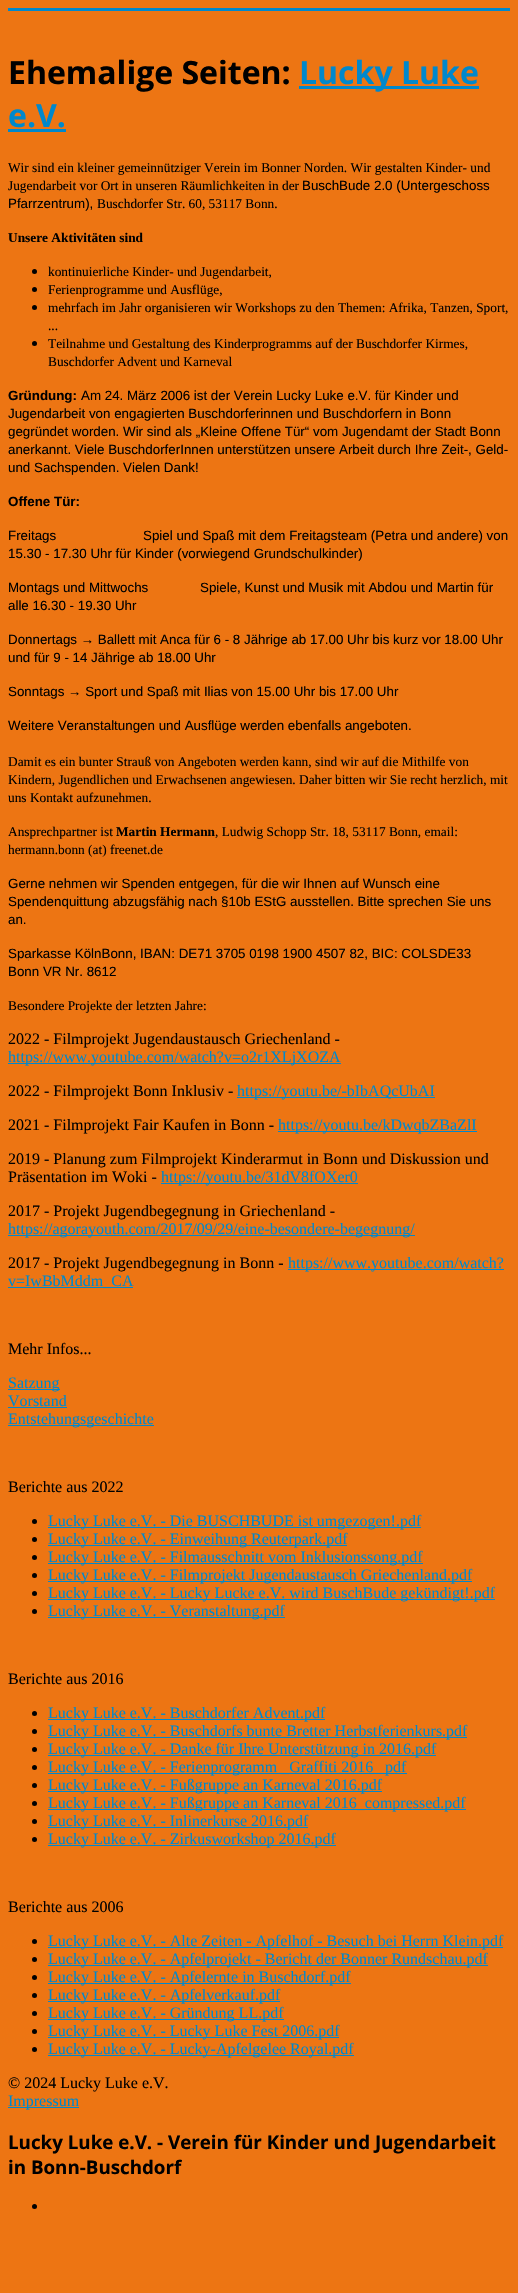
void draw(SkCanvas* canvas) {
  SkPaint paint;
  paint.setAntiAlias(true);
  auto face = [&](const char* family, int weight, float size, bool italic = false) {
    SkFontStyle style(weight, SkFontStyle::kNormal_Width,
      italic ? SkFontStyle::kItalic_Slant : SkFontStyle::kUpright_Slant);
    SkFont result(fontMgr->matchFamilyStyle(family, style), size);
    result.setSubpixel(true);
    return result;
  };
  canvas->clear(0xffed7513);
  {
    const struct { float x, y, w, h; SkColor color; } items[] = {
      {8, 8, 502, 3, 0xff0088cc},
      {299, 86, 180, 3, 0xff0088cc},
      {8, 129, 58, 3, 0xff0088cc},
    };
    for (auto [x, y, w, h, color] : items) {
      paint.setColor(color);
      canvas->drawRect(SkRect::MakeXYWH(x, y, w, h), paint);
    }
  }
  paint.setColor(0xff000000);
  canvas->drawCircle(34.5f, 271.5f, 2.5f, paint);
  canvas->drawCircle(34.5f, 289.5f, 2.5f, paint);
  canvas->drawCircle(34.5f, 307.5f, 2.5f, paint);
  canvas->drawCircle(34.5f, 343.5f, 2.5f, paint);
  {
    const struct { float x, y, w, h; SkColor color; } items[] = {
      {8, 1063, 333, 1, 0xff0088cc},
      {237, 1097, 198, 1, 0xff0088cc},
      {278, 1131, 199, 1, 0xff0088cc},
      {161, 1183, 197, 1, 0xff0088cc},
      {8, 1235, 407, 1, 0xff0088cc},
      {288, 1269, 216, 1, 0xff0088cc},
      {8, 1287, 125, 1, 0xff0088cc},
      {8, 1389, 52, 1, 0xff0088cc},
      {8, 1407, 59, 1, 0xff0088cc},
      {8, 1425, 146, 1, 0xff0088cc},
    };
    for (auto [x, y, w, h, color] : items) {
      paint.setColor(color);
      canvas->drawRect(SkRect::MakeXYWH(x, y, w, h), paint);
    }
  }
  paint.setColor(0xff000000);
  canvas->drawCircle(34.5f, 1521.5f, 2.5f, paint);
  paint.setColor(0xff0088cc);
  canvas->drawRect(SkRect::MakeXYWH(48, 1527, 373, 1), paint);
  paint.setColor(0xff000000);
  canvas->drawCircle(34.5f, 1539.5f, 2.5f, paint);
  paint.setColor(0xff0088cc);
  canvas->drawRect(SkRect::MakeXYWH(48, 1545, 299, 1), paint);
  paint.setColor(0xff000000);
  canvas->drawCircle(34.5f, 1557.5f, 2.5f, paint);
  paint.setColor(0xff0088cc);
  canvas->drawRect(SkRect::MakeXYWH(48, 1563, 375, 1), paint);
  paint.setColor(0xff000000);
  canvas->drawCircle(34.5f, 1575.5f, 2.5f, paint);
  paint.setColor(0xff0088cc);
  canvas->drawRect(SkRect::MakeXYWH(48, 1581, 424, 1), paint);
  paint.setColor(0xff000000);
  canvas->drawCircle(34.5f, 1593.5f, 2.5f, paint);
  paint.setColor(0xff0088cc);
  canvas->drawRect(SkRect::MakeXYWH(48, 1599, 447, 1), paint);
  paint.setColor(0xff000000);
  canvas->drawCircle(34.5f, 1611.5f, 2.5f, paint);
  paint.setColor(0xff0088cc);
  canvas->drawRect(SkRect::MakeXYWH(48, 1617, 237, 1), paint);
  paint.setColor(0xff000000);
  canvas->drawCircle(34.5f, 1713.5f, 2.5f, paint);
  paint.setColor(0xff0088cc);
  canvas->drawRect(SkRect::MakeXYWH(48, 1719, 277, 1), paint);
  paint.setColor(0xff000000);
  canvas->drawCircle(34.5f, 1731.5f, 2.5f, paint);
  paint.setColor(0xff0088cc);
  canvas->drawRect(SkRect::MakeXYWH(48, 1737, 419, 1), paint);
  paint.setColor(0xff000000);
  canvas->drawCircle(34.5f, 1749.5f, 2.5f, paint);
  paint.setColor(0xff0088cc);
  canvas->drawRect(SkRect::MakeXYWH(48, 1755, 388, 1), paint);
  paint.setColor(0xff000000);
  canvas->drawCircle(34.5f, 1767.5f, 2.5f, paint);
  paint.setColor(0xff0088cc);
  canvas->drawRect(SkRect::MakeXYWH(48, 1773, 359, 1), paint);
  paint.setColor(0xff000000);
  canvas->drawCircle(34.5f, 1785.5f, 2.5f, paint);
  paint.setColor(0xff0088cc);
  canvas->drawRect(SkRect::MakeXYWH(48, 1791, 334, 1), paint);
  paint.setColor(0xff000000);
  canvas->drawCircle(34.5f, 1803.5f, 2.5f, paint);
  paint.setColor(0xff0088cc);
  canvas->drawRect(SkRect::MakeXYWH(48, 1809, 418, 1), paint);
  paint.setColor(0xff000000);
  canvas->drawCircle(34.5f, 1821.5f, 2.5f, paint);
  paint.setColor(0xff0088cc);
  canvas->drawRect(SkRect::MakeXYWH(48, 1827, 260, 1), paint);
  paint.setColor(0xff000000);
  canvas->drawCircle(34.5f, 1839.5f, 2.5f, paint);
  paint.setColor(0xff0088cc);
  canvas->drawRect(SkRect::MakeXYWH(48, 1845, 288, 1), paint);
  paint.setColor(0xff000000);
  canvas->drawCircle(34.5f, 1941.5f, 2.5f, paint);
  paint.setColor(0xff0088cc);
  canvas->drawRect(SkRect::MakeXYWH(48, 1947, 455, 1), paint);
  paint.setColor(0xff000000);
  canvas->drawCircle(34.5f, 1959.5f, 2.5f, paint);
  paint.setColor(0xff0088cc);
  canvas->drawRect(SkRect::MakeXYWH(48, 1965, 440, 1), paint);
  paint.setColor(0xff000000);
  canvas->drawCircle(34.5f, 1977.5f, 2.5f, paint);
  paint.setColor(0xff0088cc);
  canvas->drawRect(SkRect::MakeXYWH(48, 1983, 303, 1), paint);
  paint.setColor(0xff000000);
  canvas->drawCircle(34.5f, 1995.5f, 2.5f, paint);
  paint.setColor(0xff0088cc);
  canvas->drawRect(SkRect::MakeXYWH(48, 2001, 232, 1), paint);
  paint.setColor(0xff000000);
  canvas->drawCircle(34.5f, 2013.5f, 2.5f, paint);
  paint.setColor(0xff0088cc);
  canvas->drawRect(SkRect::MakeXYWH(48, 2019, 236, 1), paint);
  paint.setColor(0xff000000);
  canvas->drawCircle(34.5f, 2031.5f, 2.5f, paint);
  paint.setColor(0xff0088cc);
  canvas->drawRect(SkRect::MakeXYWH(48, 2037, 291, 1), paint);
  paint.setColor(0xff000000);
  canvas->drawCircle(34.5f, 2049.5f, 2.5f, paint);
  paint.setColor(0xff0088cc);
  canvas->drawRect(SkRect::MakeXYWH(48, 2055, 306, 1), paint);
  canvas->drawRect(SkRect::MakeXYWH(8, 2107, 71, 1), paint);
  paint.setColor(0xff000000);
  canvas->drawCircle(34.5f, 2206.5f, 2.5f, paint);
  auto f0 = face("Open Sans", 700, 32);
  canvas->drawString("Ehemalige Seiten:", 8, 84, f0, paint);
  paint.setColor(0xff0088cc);
  canvas->drawString("Lucky Luke", 299, 84, f0, paint);
  canvas->drawString("e.V.", 8, 127, f0, paint);
  auto f1 = face("Liberation Serif", 400, 13.35f);
  paint.setColor(0xff000000);
  canvas->drawString("Wir sind ein kleiner gemeinnütziger Verein im Bonner Norden. Wir gestalten Kinder- und", 8, 172, f1, paint);
  canvas->drawString("Jugendarbeit vor Ort in unseren Räumlichkeiten in der", 8, 190, f1, paint);
  auto f2 = face("Liberation Sans", 400, 13.35f);
  canvas->drawString("BuschBude 2.0 (Untergeschoss", 302, 190, f2, paint);
  canvas->drawString("Pfarrzentrum),", 8, 208, f2, paint);
  canvas->drawString("Buschdorfer Str. 60, 53117 Bonn.", 97, 208, f1, paint);
  auto f3 = face("Liberation Serif", 700, 13.35f);
  canvas->drawString("Unsere Aktivitäten sind", 8, 242, f3, paint);
  {
    const struct { const char* s; float x, y; } items[] = {
      {"kontinuierliche Kinder- und Jugendarbeit,", 48, 276},
      {"Ferienprogramme und Ausflüge,", 48, 294},
      {"mehrfach im Jahr organisieren wir Workshops zu den Themen: Afrika, Tanzen, Sport,", 48, 312},
      {"...", 48, 330},
      {"Teilnahme und Gestaltung des Kinderprogramms auf der Buschdorfer Kirmes,", 48, 348},
      {"Buschdorfer Advent und Karneval", 48, 366},
    };
    for (auto [s, x, y] : items) {
      canvas->drawString(s, x, y, f1, paint);
    }
  }
  auto f4 = face("Liberation Sans", 700, 13.35f);
  canvas->drawString("Gründung:", 8, 400, f4, paint);
  {
    const struct { const char* s; float x, y; } items[] = {
      {"Am 24. März 2006 ist der Verein Lucky Luke e.V. für Kinder und", 81, 400},
      {"Jugendarbeit von engagierten Buschdorferinnen und Buschdorfern in Bonn", 8, 418},
      {"gegründet worden. Wir sind als „Kleine Offene Tür“ vom Jugendamt der Stadt Bonn", 8, 436},
      {"anerkannt. Viele BuschdorferInnen unterstützen unsere Arbeit durch Ihre Zeit-, Geld-", 8, 454},
      {"und Sachspenden. Vielen Dank!", 8, 472},
    };
    for (auto [s, x, y] : items) {
      canvas->drawString(s, x, y, f2, paint);
    }
  }
  canvas->drawString("Offene Tür:", 8, 506, f4, paint);
  {
    const struct { const char* s; float x, y; } items[] = {
      {"Freitags", 8, 540},
      {"Spiel und Spaß mit dem Freitagsteam (Petra und andere) von", 143, 540},
      {"15.30 - 17.30 Uhr für Kinder (vorwiegend Grundschulkinder)", 8, 558},
      {"Montags und Mittwochs", 8, 592},
      {"Spiele, Kunst und Musik mit Abdou und Martin für", 200, 592},
      {"alle 16.30 - 19.30 Uhr", 8, 610},
      {"Donnertags → Ballett mit Anca für 6 - 8 Jährige ab 17.00 Uhr bis kurz vor 18.00 Uhr", 8, 644},
      {"und für 9 - 14 Jährige ab 18.00 Uhr", 8, 662},
      {"Sonntags → Sport und Spaß mit Ilias von 15.00 Uhr bis 17.00 Uhr", 8, 696},
      {"Weitere Veranstaltungen und Ausflüge werden ebenfalls angeboten.", 8, 730},
    };
    for (auto [s, x, y] : items) {
      canvas->drawString(s, x, y, f2, paint);
    }
  }
  {
    const struct { const char* s; float x, y; } items[] = {
      {"Damit es ein bunter Strauß von Angeboten werden kann, sind wir auf die Mithilfe von", 8, 766},
      {"Kindern, Jugendlichen und Erwachsenen angewiesen. Daher bitten wir Sie recht herzlich, mit", 8, 784},
      {"uns Kontakt aufzunehmen.", 8, 802},
      {"Ansprechpartner ist", 8, 836},
    };
    for (auto [s, x, y] : items) {
      canvas->drawString(s, x, y, f1, paint);
    }
  }
  canvas->drawString("Martin Hermann", 116, 836, f3, paint);
  canvas->drawString(", Ludwig Schopp Str. 18, 53117 Bonn, email:", 215, 836, f1, paint);
  canvas->drawString("hermann.bonn (at) freenet.de", 8, 854, f1, paint);
  {
    const struct { const char* s; float x, y; } items[] = {
      {"Gerne nehmen wir Spenden entgegen, für die wir Ihnen auf Wunsch eine", 8, 888},
      {"Spendenquittung abzugsfähig nach §10b EStG ausstellen. Bitte sprechen Sie uns", 8, 906},
      {"an.", 8, 924},
      {"Sparkasse KölnBonn, IBAN: DE71 3705 0198 1900 4507 82, BIC: COLSDE33", 8, 958},
      {"Bonn VR Nr. 8612", 8, 976},
    };
    for (auto [s, x, y] : items) {
      canvas->drawString(s, x, y, f2, paint);
    }
  }
  canvas->drawString("Besondere Projekte der letzten Jahre:", 8, 1010, f1, paint);
  auto f5 = face("Liberation Serif", 400, 16);
  canvas->drawString("2022 - Filmprojekt Jugendaustausch Griechenland -", 8, 1044, f5, paint);
  paint.setColor(0xff0088cc);
  canvas->drawString("https://www.youtube.com/watch?v=o2r1XLjXOZA", 8, 1062, f5, paint);
  paint.setColor(0xff000000);
  canvas->drawString("2022 - Filmprojekt Bonn Inklusiv -", 8, 1096, f5, paint);
  paint.setColor(0xff0088cc);
  canvas->drawString("https://youtu.be/-bIbAQcUbAI", 237, 1096, f5, paint);
  paint.setColor(0xff000000);
  canvas->drawString("2021 - Filmprojekt Fair Kaufen in Bonn -", 8, 1130, f5, paint);
  paint.setColor(0xff0088cc);
  canvas->drawString("https://youtu.be/kDwqbZBaZlI", 278, 1130, f5, paint);
  paint.setColor(0xff000000);
  canvas->drawString("2019 - Planung zum Filmprojekt Kinderarmut in Bonn und Diskussion und", 8, 1164, f5, paint);
  canvas->drawString("Präsentation im Woki -", 8, 1182, f5, paint);
  paint.setColor(0xff0088cc);
  canvas->drawString("https://youtu.be/31dV8fOXer0", 161, 1182, f5, paint);
  paint.setColor(0xff000000);
  canvas->drawString("2017 - Projekt Jugendbegegnung in Griechenland -", 8, 1216, f5, paint);
  paint.setColor(0xff0088cc);
  canvas->drawString("https://agorayouth.com/2017/09/29/eine-besondere-begegnung/", 8, 1234, f5, paint);
  paint.setColor(0xff000000);
  canvas->drawString("2017 - Projekt Jugendbegegnung in Bonn -", 8, 1268, f5, paint);
  paint.setColor(0xff0088cc);
  canvas->drawString("https://www.youtube.com/watch?", 288, 1268, f5, paint);
  canvas->drawString("v=IwBbMddm_CA", 8, 1286, f5, paint);
  paint.setColor(0xff000000);
  canvas->drawString("Mehr Infos...", 8, 1354, f5, paint);
  paint.setColor(0xff0088cc);
  {
    const struct { const char* s; float x, y; } items[] = {
      {"Satzung", 8, 1388},
      {"Vorstand", 8, 1406},
      {"Entstehungsgeschichte", 8, 1424},
    };
    for (auto [s, x, y] : items) {
      canvas->drawString(s, x, y, f5, paint);
    }
  }
  paint.setColor(0xff000000);
  canvas->drawString("Berichte aus 2022", 8, 1492, f5, paint);
  paint.setColor(0xff0088cc);
  {
    const struct { const char* s; float x, y; } items[] = {
      {"Lucky Luke e.V. - Die BUSCHBUDE ist umgezogen!.pdf", 48, 1526},
      {"Lucky Luke e.V. - Einweihung Reuterpark.pdf", 48, 1544},
      {"Lucky Luke e.V. - Filmausschnitt vom Inklusionssong.pdf", 48, 1562},
      {"Lucky Luke e.V. - Filmprojekt Jugendaustausch Griechenland.pdf", 48, 1580},
      {"Lucky Luke e.V. - Lucky Lucke e.V. wird BuschBude gekündigt!.pdf", 48, 1598},
      {"Lucky Luke e.V. - Veranstaltung.pdf", 48, 1616},
    };
    for (auto [s, x, y] : items) {
      canvas->drawString(s, x, y, f5, paint);
    }
  }
  paint.setColor(0xff000000);
  canvas->drawString("Berichte aus 2016", 8, 1684, f5, paint);
  paint.setColor(0xff0088cc);
  {
    const struct { const char* s; float x, y; } items[] = {
      {"Lucky Luke e.V. - Buschdorfer Advent.pdf", 48, 1718},
      {"Lucky Luke e.V. - Buschdorfs bunte Bretter Herbstferienkurs.pdf", 48, 1736},
      {"Lucky Luke e.V. - Danke für Ihre Unterstützung in 2016.pdf", 48, 1754},
      {"Lucky Luke e.V. - Ferienprogramm _Graffiti 2016", 48, 1772},
      {"pdf", 385, 1772},
      {"Lucky Luke e.V. - Fußgruppe an Karneval 2016.pdf", 48, 1790},
      {"Lucky Luke e.V. - Fußgruppe an Karneval 2016_compressed.pdf", 48, 1808},
      {"Lucky Luke e.V. - Inlinerkurse 2016.pdf", 48, 1826},
      {"Lucky Luke e.V. - Zirkusworkshop 2016.pdf", 48, 1844},
    };
    for (auto [s, x, y] : items) {
      canvas->drawString(s, x, y, f5, paint);
    }
  }
  paint.setColor(0xff000000);
  canvas->drawString("Berichte aus 2006", 8, 1912, f5, paint);
  paint.setColor(0xff0088cc);
  {
    const struct { const char* s; float x, y; } items[] = {
      {"Lucky Luke e.V. - Alte Zeiten - Apfelhof - Besuch bei Herrn Klein.pdf", 48, 1946},
      {"Lucky Luke e.V. - Apfelprojekt - Bericht der Bonner Rundschau.pdf", 48, 1964},
      {"Lucky Luke e.V. - Apfelernte in Buschdorf.pdf", 48, 1982},
      {"Lucky Luke e.V. - Apfelverkauf.pdf", 48, 2000},
      {"Lucky Luke e.V. - Gründung LL.pdf", 48, 2018},
      {"Lucky Luke e.V. - Lucky Luke Fest 2006.pdf", 48, 2036},
      {"Lucky Luke e.V. - Lucky-Apfelgelee Royal.pdf", 48, 2054},
    };
    for (auto [s, x, y] : items) {
      canvas->drawString(s, x, y, f5, paint);
    }
  }
  paint.setColor(0xff000000);
  canvas->drawString("© 2024 Lucky Luke e.V.", 8, 2088, f5, paint);
  paint.setColor(0xff0088cc);
  canvas->drawString("Impressum", 8, 2106, f5, paint);
  auto f6 = face("Open Sans", 700, 18.75f);
  paint.setColor(0xff000000);
  canvas->drawString("Lucky Luke e.V. - Verein für Kinder und Jugendarbeit", 8, 2149, f6, paint);
  canvas->drawString("in Bonn-Buschdorf", 8, 2174, f6, paint);
}
